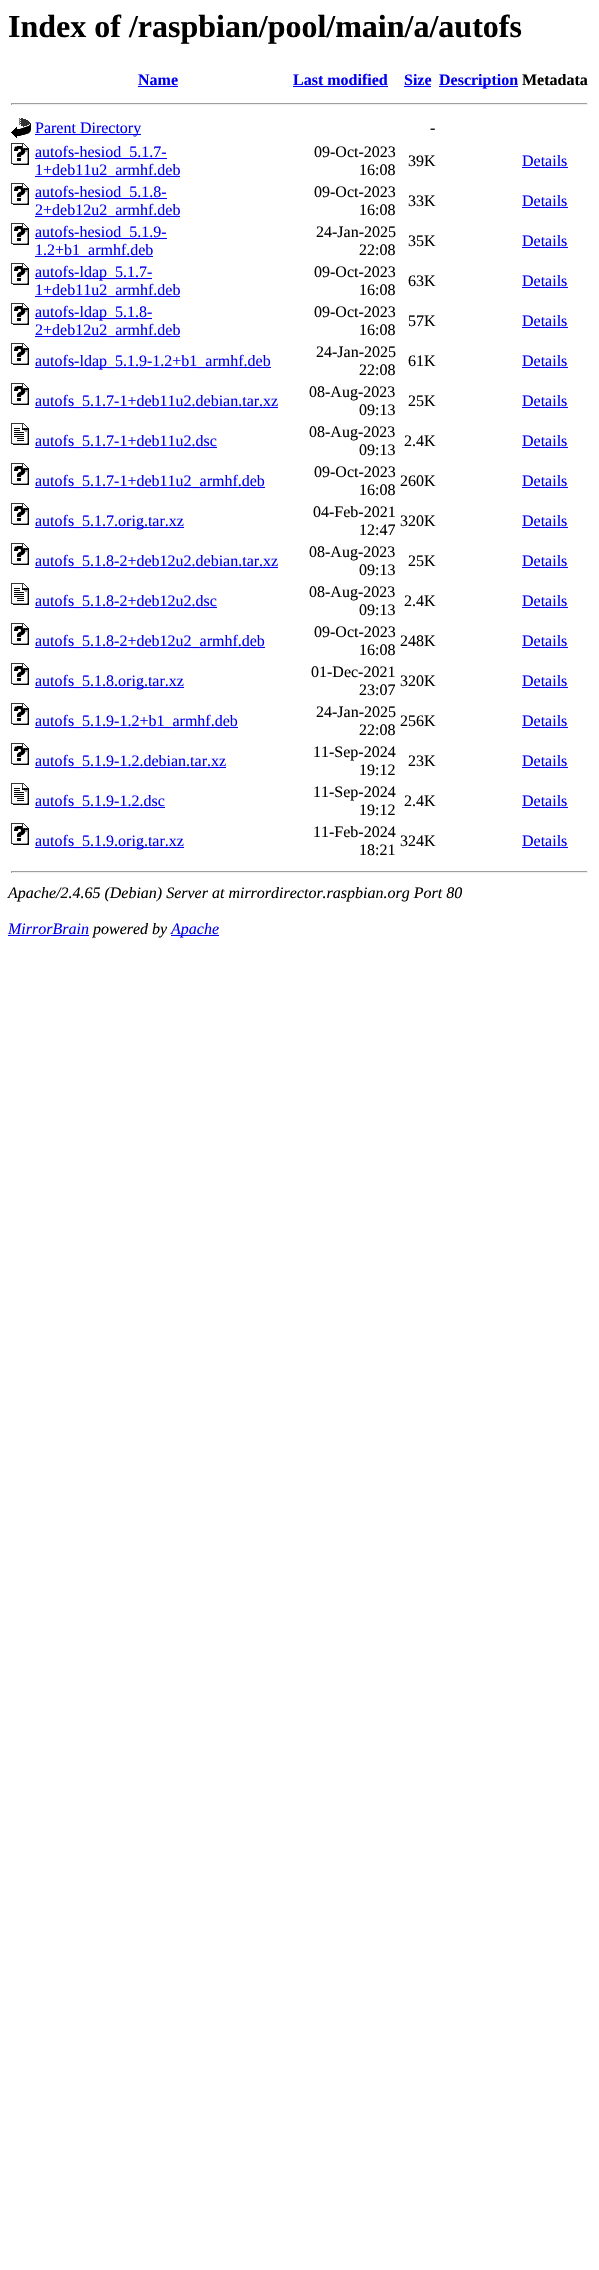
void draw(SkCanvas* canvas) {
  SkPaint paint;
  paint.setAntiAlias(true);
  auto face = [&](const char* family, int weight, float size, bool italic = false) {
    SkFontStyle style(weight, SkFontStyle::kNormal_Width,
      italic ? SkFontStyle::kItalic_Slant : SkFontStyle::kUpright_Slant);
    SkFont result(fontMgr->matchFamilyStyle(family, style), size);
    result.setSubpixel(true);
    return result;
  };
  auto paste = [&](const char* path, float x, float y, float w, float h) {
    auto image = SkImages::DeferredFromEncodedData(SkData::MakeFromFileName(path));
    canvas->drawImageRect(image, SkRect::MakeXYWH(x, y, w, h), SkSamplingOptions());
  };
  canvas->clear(0xffffffff);
  {
    const struct { float x, y, w, h; SkColor color; } items[] = {
      {138, 86, 40, 1, 0xff0000ee},
      {293, 86, 95, 1, 0xff0000ee},
      {404, 86, 27, 1, 0xff0000ee},
      {439, 86, 79, 1, 0xff0000ee},
      {11, 103, 577, 1, 0xff9f9f9f},
      {587, 103, 1, 2, 0xffeeeeee},
      {11, 104, 577, 1, 0xffeeeeee},
      {11, 103, 1, 2, 0xff9f9f9f},
    };
    for (auto [x, y, w, h, color] : items) {
      paint.setColor(color);
      canvas->drawRect(SkRect::MakeXYWH(x, y, w, h), paint);
    }
  }
  paste("img/1.png", 11, 118, 20, 20);
  paint.setColor(0xff0000ee);
  canvas->drawRect(SkRect::MakeXYWH(35, 134, 106, 1), paint);
  paste("img/2.png", 11, 143, 18, 22);
  {
    const struct { float x, y, w, h; SkColor color; } items[] = {
      {35, 158, 132, 1, 0xff0000ee},
      {35, 176, 145, 1, 0xff0000ee},
      {522, 167, 46, 1, 0xff0000ee},
    };
    for (auto [x, y, w, h, color] : items) {
      paint.setColor(color);
      canvas->drawRect(SkRect::MakeXYWH(x, y, w, h), paint);
    }
  }
  paste("img/2.png", 11, 183, 18, 22);
  {
    const struct { float x, y, w, h; SkColor color; } items[] = {
      {35, 198, 132, 1, 0xff0000ee},
      {35, 216, 145, 1, 0xff0000ee},
      {522, 207, 46, 1, 0xff0000ee},
    };
    for (auto [x, y, w, h, color] : items) {
      paint.setColor(color);
      canvas->drawRect(SkRect::MakeXYWH(x, y, w, h), paint);
    }
  }
  paste("img/2.png", 11, 223, 18, 22);
  {
    const struct { float x, y, w, h; SkColor color; } items[] = {
      {35, 238, 132, 1, 0xff0000ee},
      {35, 256, 118, 1, 0xff0000ee},
      {522, 247, 46, 1, 0xff0000ee},
    };
    for (auto [x, y, w, h, color] : items) {
      paint.setColor(color);
      canvas->drawRect(SkRect::MakeXYWH(x, y, w, h), paint);
    }
  }
  paste("img/2.png", 11, 263, 18, 22);
  {
    const struct { float x, y, w, h; SkColor color; } items[] = {
      {35, 278, 117, 1, 0xff0000ee},
      {35, 296, 145, 1, 0xff0000ee},
      {522, 287, 46, 1, 0xff0000ee},
    };
    for (auto [x, y, w, h, color] : items) {
      paint.setColor(color);
      canvas->drawRect(SkRect::MakeXYWH(x, y, w, h), paint);
    }
  }
  paste("img/2.png", 11, 303, 18, 22);
  {
    const struct { float x, y, w, h; SkColor color; } items[] = {
      {35, 318, 117, 1, 0xff0000ee},
      {35, 336, 145, 1, 0xff0000ee},
      {522, 327, 46, 1, 0xff0000ee},
    };
    for (auto [x, y, w, h, color] : items) {
      paint.setColor(color);
      canvas->drawRect(SkRect::MakeXYWH(x, y, w, h), paint);
    }
  }
  paste("img/2.png", 11, 343, 18, 22);
  canvas->drawRect(SkRect::MakeXYWH(35, 367, 236, 1), paint);
  canvas->drawRect(SkRect::MakeXYWH(522, 367, 46, 1), paint);
  paste("img/2.png", 11, 383, 18, 22);
  canvas->drawRect(SkRect::MakeXYWH(35, 407, 243, 1), paint);
  canvas->drawRect(SkRect::MakeXYWH(522, 407, 46, 1), paint);
  paste("img/3.png", 11, 423, 18, 22);
  canvas->drawRect(SkRect::MakeXYWH(35, 447, 182, 1), paint);
  canvas->drawRect(SkRect::MakeXYWH(522, 447, 46, 1), paint);
  paste("img/2.png", 11, 463, 18, 22);
  canvas->drawRect(SkRect::MakeXYWH(35, 487, 230, 1), paint);
  canvas->drawRect(SkRect::MakeXYWH(522, 487, 46, 1), paint);
  paste("img/2.png", 11, 503, 18, 22);
  canvas->drawRect(SkRect::MakeXYWH(35, 527, 149, 1), paint);
  canvas->drawRect(SkRect::MakeXYWH(522, 527, 46, 1), paint);
  paste("img/2.png", 11, 543, 18, 22);
  canvas->drawRect(SkRect::MakeXYWH(35, 567, 243, 1), paint);
  canvas->drawRect(SkRect::MakeXYWH(522, 567, 46, 1), paint);
  paste("img/3.png", 11, 583, 18, 22);
  canvas->drawRect(SkRect::MakeXYWH(35, 607, 182, 1), paint);
  canvas->drawRect(SkRect::MakeXYWH(522, 607, 46, 1), paint);
  paste("img/2.png", 11, 623, 18, 22);
  canvas->drawRect(SkRect::MakeXYWH(35, 647, 230, 1), paint);
  canvas->drawRect(SkRect::MakeXYWH(522, 647, 46, 1), paint);
  paste("img/2.png", 11, 663, 18, 22);
  canvas->drawRect(SkRect::MakeXYWH(35, 687, 149, 1), paint);
  canvas->drawRect(SkRect::MakeXYWH(522, 687, 46, 1), paint);
  paste("img/2.png", 11, 703, 18, 22);
  canvas->drawRect(SkRect::MakeXYWH(35, 727, 203, 1), paint);
  canvas->drawRect(SkRect::MakeXYWH(522, 727, 46, 1), paint);
  paste("img/2.png", 11, 743, 18, 22);
  canvas->drawRect(SkRect::MakeXYWH(35, 767, 191, 1), paint);
  canvas->drawRect(SkRect::MakeXYWH(522, 767, 46, 1), paint);
  paste("img/3.png", 11, 783, 18, 22);
  canvas->drawRect(SkRect::MakeXYWH(35, 807, 130, 1), paint);
  canvas->drawRect(SkRect::MakeXYWH(522, 807, 46, 1), paint);
  paste("img/2.png", 11, 823, 18, 22);
  {
    const struct { float x, y, w, h; SkColor color; } items[] = {
      {35, 847, 149, 1, 0xff0000ee},
      {522, 847, 46, 1, 0xff0000ee},
      {11, 871, 577, 1, 0xff9f9f9f},
      {587, 871, 1, 2, 0xffeeeeee},
      {11, 872, 577, 1, 0xffeeeeee},
      {11, 871, 1, 2, 0xff9f9f9f},
      {8, 935, 81, 1, 0xff0000ee},
      {171, 935, 48, 1, 0xff0000ee},
    };
    for (auto [x, y, w, h, color] : items) {
      paint.setColor(color);
      canvas->drawRect(SkRect::MakeXYWH(x, y, w, h), paint);
    }
  }
  auto f0 = face("Liberation Serif", 700, 32);
  paint.setColor(0xff000000);
  canvas->drawString("Index of /raspbian/pool/main/a/autofs", 8, 37, f0, paint);
  auto f1 = face("Liberation Serif", 700, 16);
  paint.setColor(0xff0000ee);
  {
    const struct { const char* s; float x, y; } items[] = {
      {"Name", 138, 85},
      {"Last modified", 293, 85},
      {"Size", 404, 85},
      {"Description", 439, 85},
    };
    for (auto [s, x, y] : items) {
      canvas->drawString(s, x, y, f1, paint);
    }
  }
  paint.setColor(0xff000000);
  canvas->drawString("Metadata", 522, 85, f1, paint);
  auto f2 = face("Liberation Serif", 400, 16);
  paint.setColor(0xff0000ee);
  canvas->drawString("Parent Directory", 35, 133, f2, paint);
  paint.setColor(0xff000000);
  canvas->drawString("-", 430, 133, f2, paint);
  paint.setColor(0xff0000ee);
  canvas->drawString("autofs-hesiod_5.1.7-", 35, 157, f2, paint);
  canvas->drawString("1+deb11u2_armhf.deb", 35, 175, f2, paint);
  paint.setColor(0xff000000);
  {
    const struct { const char* s; float x, y; } items[] = {
      {"09-Oct-2023", 314, 157},
      {"16:08", 359, 175},
      {"39K", 408, 166},
    };
    for (auto [s, x, y] : items) {
      canvas->drawString(s, x, y, f2, paint);
    }
  }
  paint.setColor(0xff0000ee);
  {
    const struct { const char* s; float x, y; } items[] = {
      {"Details", 522, 166},
      {"autofs-hesiod_5.1.8-", 35, 197},
      {"2+deb12u2_armhf.deb", 35, 215},
    };
    for (auto [s, x, y] : items) {
      canvas->drawString(s, x, y, f2, paint);
    }
  }
  paint.setColor(0xff000000);
  {
    const struct { const char* s; float x, y; } items[] = {
      {"09-Oct-2023", 314, 197},
      {"16:08", 359, 215},
      {"33K", 408, 206},
    };
    for (auto [s, x, y] : items) {
      canvas->drawString(s, x, y, f2, paint);
    }
  }
  paint.setColor(0xff0000ee);
  {
    const struct { const char* s; float x, y; } items[] = {
      {"Details", 522, 206},
      {"autofs-hesiod_5.1.9-", 35, 237},
      {"1.2+b1_armhf.deb", 35, 255},
    };
    for (auto [s, x, y] : items) {
      canvas->drawString(s, x, y, f2, paint);
    }
  }
  paint.setColor(0xff000000);
  {
    const struct { const char* s; float x, y; } items[] = {
      {"24-Jan-2025", 316, 237},
      {"22:08", 359, 255},
      {"35K", 408, 246},
    };
    for (auto [s, x, y] : items) {
      canvas->drawString(s, x, y, f2, paint);
    }
  }
  paint.setColor(0xff0000ee);
  {
    const struct { const char* s; float x, y; } items[] = {
      {"Details", 522, 246},
      {"autofs-ldap_5.1.7-", 35, 277},
      {"1+deb11u2_armhf.deb", 35, 295},
    };
    for (auto [s, x, y] : items) {
      canvas->drawString(s, x, y, f2, paint);
    }
  }
  paint.setColor(0xff000000);
  {
    const struct { const char* s; float x, y; } items[] = {
      {"09-Oct-2023", 314, 277},
      {"16:08", 359, 295},
      {"63K", 408, 286},
    };
    for (auto [s, x, y] : items) {
      canvas->drawString(s, x, y, f2, paint);
    }
  }
  paint.setColor(0xff0000ee);
  {
    const struct { const char* s; float x, y; } items[] = {
      {"Details", 522, 286},
      {"autofs-ldap_5.1.8-", 35, 317},
      {"2+deb12u2_armhf.deb", 35, 335},
    };
    for (auto [s, x, y] : items) {
      canvas->drawString(s, x, y, f2, paint);
    }
  }
  paint.setColor(0xff000000);
  {
    const struct { const char* s; float x, y; } items[] = {
      {"09-Oct-2023", 314, 317},
      {"16:08", 359, 335},
      {"57K", 408, 326},
    };
    for (auto [s, x, y] : items) {
      canvas->drawString(s, x, y, f2, paint);
    }
  }
  paint.setColor(0xff0000ee);
  canvas->drawString("Details", 522, 326, f2, paint);
  canvas->drawString("autofs-ldap_5.1.9-1.2+b1_armhf.deb", 35, 366, f2, paint);
  paint.setColor(0xff000000);
  {
    const struct { const char* s; float x, y; } items[] = {
      {"24-Jan-2025", 316, 357},
      {"22:08", 359, 375},
      {"61K", 408, 366},
    };
    for (auto [s, x, y] : items) {
      canvas->drawString(s, x, y, f2, paint);
    }
  }
  paint.setColor(0xff0000ee);
  canvas->drawString("Details", 522, 366, f2, paint);
  canvas->drawString("autofs_5.1.7-1+deb11u2.debian.tar.xz", 35, 406, f2, paint);
  paint.setColor(0xff000000);
  {
    const struct { const char* s; float x, y; } items[] = {
      {"08-Aug-2023", 309, 397},
      {"09:13", 359, 415},
      {"25K", 408, 406},
    };
    for (auto [s, x, y] : items) {
      canvas->drawString(s, x, y, f2, paint);
    }
  }
  paint.setColor(0xff0000ee);
  canvas->drawString("Details", 522, 406, f2, paint);
  canvas->drawString("autofs_5.1.7-1+deb11u2.dsc", 35, 446, f2, paint);
  paint.setColor(0xff000000);
  {
    const struct { const char* s; float x, y; } items[] = {
      {"08-Aug-2023", 309, 437},
      {"09:13", 359, 455},
      {"2.4K", 404, 446},
    };
    for (auto [s, x, y] : items) {
      canvas->drawString(s, x, y, f2, paint);
    }
  }
  paint.setColor(0xff0000ee);
  canvas->drawString("Details", 522, 446, f2, paint);
  canvas->drawString("autofs_5.1.7-1+deb11u2_armhf.deb", 35, 486, f2, paint);
  paint.setColor(0xff000000);
  {
    const struct { const char* s; float x, y; } items[] = {
      {"09-Oct-2023", 314, 477},
      {"16:08", 359, 495},
      {"260K", 400, 486},
    };
    for (auto [s, x, y] : items) {
      canvas->drawString(s, x, y, f2, paint);
    }
  }
  paint.setColor(0xff0000ee);
  canvas->drawString("Details", 522, 486, f2, paint);
  canvas->drawString("autofs_5.1.7.orig.tar.xz", 35, 526, f2, paint);
  paint.setColor(0xff000000);
  {
    const struct { const char* s; float x, y; } items[] = {
      {"04-Feb-2021", 313, 517},
      {"12:47", 359, 535},
      {"320K", 400, 526},
    };
    for (auto [s, x, y] : items) {
      canvas->drawString(s, x, y, f2, paint);
    }
  }
  paint.setColor(0xff0000ee);
  canvas->drawString("Details", 522, 526, f2, paint);
  canvas->drawString("autofs_5.1.8-2+deb12u2.debian.tar.xz", 35, 566, f2, paint);
  paint.setColor(0xff000000);
  {
    const struct { const char* s; float x, y; } items[] = {
      {"08-Aug-2023", 309, 557},
      {"09:13", 359, 575},
      {"25K", 408, 566},
    };
    for (auto [s, x, y] : items) {
      canvas->drawString(s, x, y, f2, paint);
    }
  }
  paint.setColor(0xff0000ee);
  canvas->drawString("Details", 522, 566, f2, paint);
  canvas->drawString("autofs_5.1.8-2+deb12u2.dsc", 35, 606, f2, paint);
  paint.setColor(0xff000000);
  {
    const struct { const char* s; float x, y; } items[] = {
      {"08-Aug-2023", 309, 597},
      {"09:13", 359, 615},
      {"2.4K", 404, 606},
    };
    for (auto [s, x, y] : items) {
      canvas->drawString(s, x, y, f2, paint);
    }
  }
  paint.setColor(0xff0000ee);
  canvas->drawString("Details", 522, 606, f2, paint);
  canvas->drawString("autofs_5.1.8-2+deb12u2_armhf.deb", 35, 646, f2, paint);
  paint.setColor(0xff000000);
  {
    const struct { const char* s; float x, y; } items[] = {
      {"09-Oct-2023", 314, 637},
      {"16:08", 359, 655},
      {"248K", 400, 646},
    };
    for (auto [s, x, y] : items) {
      canvas->drawString(s, x, y, f2, paint);
    }
  }
  paint.setColor(0xff0000ee);
  canvas->drawString("Details", 522, 646, f2, paint);
  canvas->drawString("autofs_5.1.8.orig.tar.xz", 35, 686, f2, paint);
  paint.setColor(0xff000000);
  {
    const struct { const char* s; float x, y; } items[] = {
      {"01-Dec-2021", 311, 677},
      {"23:07", 359, 695},
      {"320K", 400, 686},
    };
    for (auto [s, x, y] : items) {
      canvas->drawString(s, x, y, f2, paint);
    }
  }
  paint.setColor(0xff0000ee);
  canvas->drawString("Details", 522, 686, f2, paint);
  canvas->drawString("autofs_5.1.9-1.2+b1_armhf.deb", 35, 726, f2, paint);
  paint.setColor(0xff000000);
  {
    const struct { const char* s; float x, y; } items[] = {
      {"24-Jan-2025", 316, 717},
      {"22:08", 359, 735},
      {"256K", 400, 726},
    };
    for (auto [s, x, y] : items) {
      canvas->drawString(s, x, y, f2, paint);
    }
  }
  paint.setColor(0xff0000ee);
  canvas->drawString("Details", 522, 726, f2, paint);
  canvas->drawString("autofs_5.1.9-1.2.debian.tar.xz", 35, 766, f2, paint);
  paint.setColor(0xff000000);
  {
    const struct { const char* s; float x, y; } items[] = {
      {"11-Sep-2024", 313, 757},
      {"19:12", 359, 775},
      {"23K", 408, 766},
    };
    for (auto [s, x, y] : items) {
      canvas->drawString(s, x, y, f2, paint);
    }
  }
  paint.setColor(0xff0000ee);
  canvas->drawString("Details", 522, 766, f2, paint);
  canvas->drawString("autofs_5.1.9-1.2.dsc", 35, 806, f2, paint);
  paint.setColor(0xff000000);
  {
    const struct { const char* s; float x, y; } items[] = {
      {"11-Sep-2024", 313, 797},
      {"19:12", 359, 815},
      {"2.4K", 404, 806},
    };
    for (auto [s, x, y] : items) {
      canvas->drawString(s, x, y, f2, paint);
    }
  }
  paint.setColor(0xff0000ee);
  canvas->drawString("Details", 522, 806, f2, paint);
  canvas->drawString("autofs_5.1.9.orig.tar.xz", 35, 846, f2, paint);
  paint.setColor(0xff000000);
  {
    const struct { const char* s; float x, y; } items[] = {
      {"11-Feb-2024", 313, 837},
      {"18:21", 359, 855},
      {"324K", 400, 846},
    };
    for (auto [s, x, y] : items) {
      canvas->drawString(s, x, y, f2, paint);
    }
  }
  paint.setColor(0xff0000ee);
  canvas->drawString("Details", 522, 846, f2, paint);
  auto f3 = face("Liberation Serif", 400, 16, true);
  paint.setColor(0xff000000);
  canvas->drawString("Apache/2.4.65 (Debian) Server at mirrordirector.raspbian.org Port 80", 8, 898, f3, paint);
  paint.setColor(0xff0000ee);
  canvas->drawString("MirrorBrain", 8, 934, f3, paint);
  paint.setColor(0xff000000);
  canvas->drawString("powered by", 93, 934, f3, paint);
  paint.setColor(0xff0000ee);
  canvas->drawString("Apache", 171, 934, f3, paint);
}
